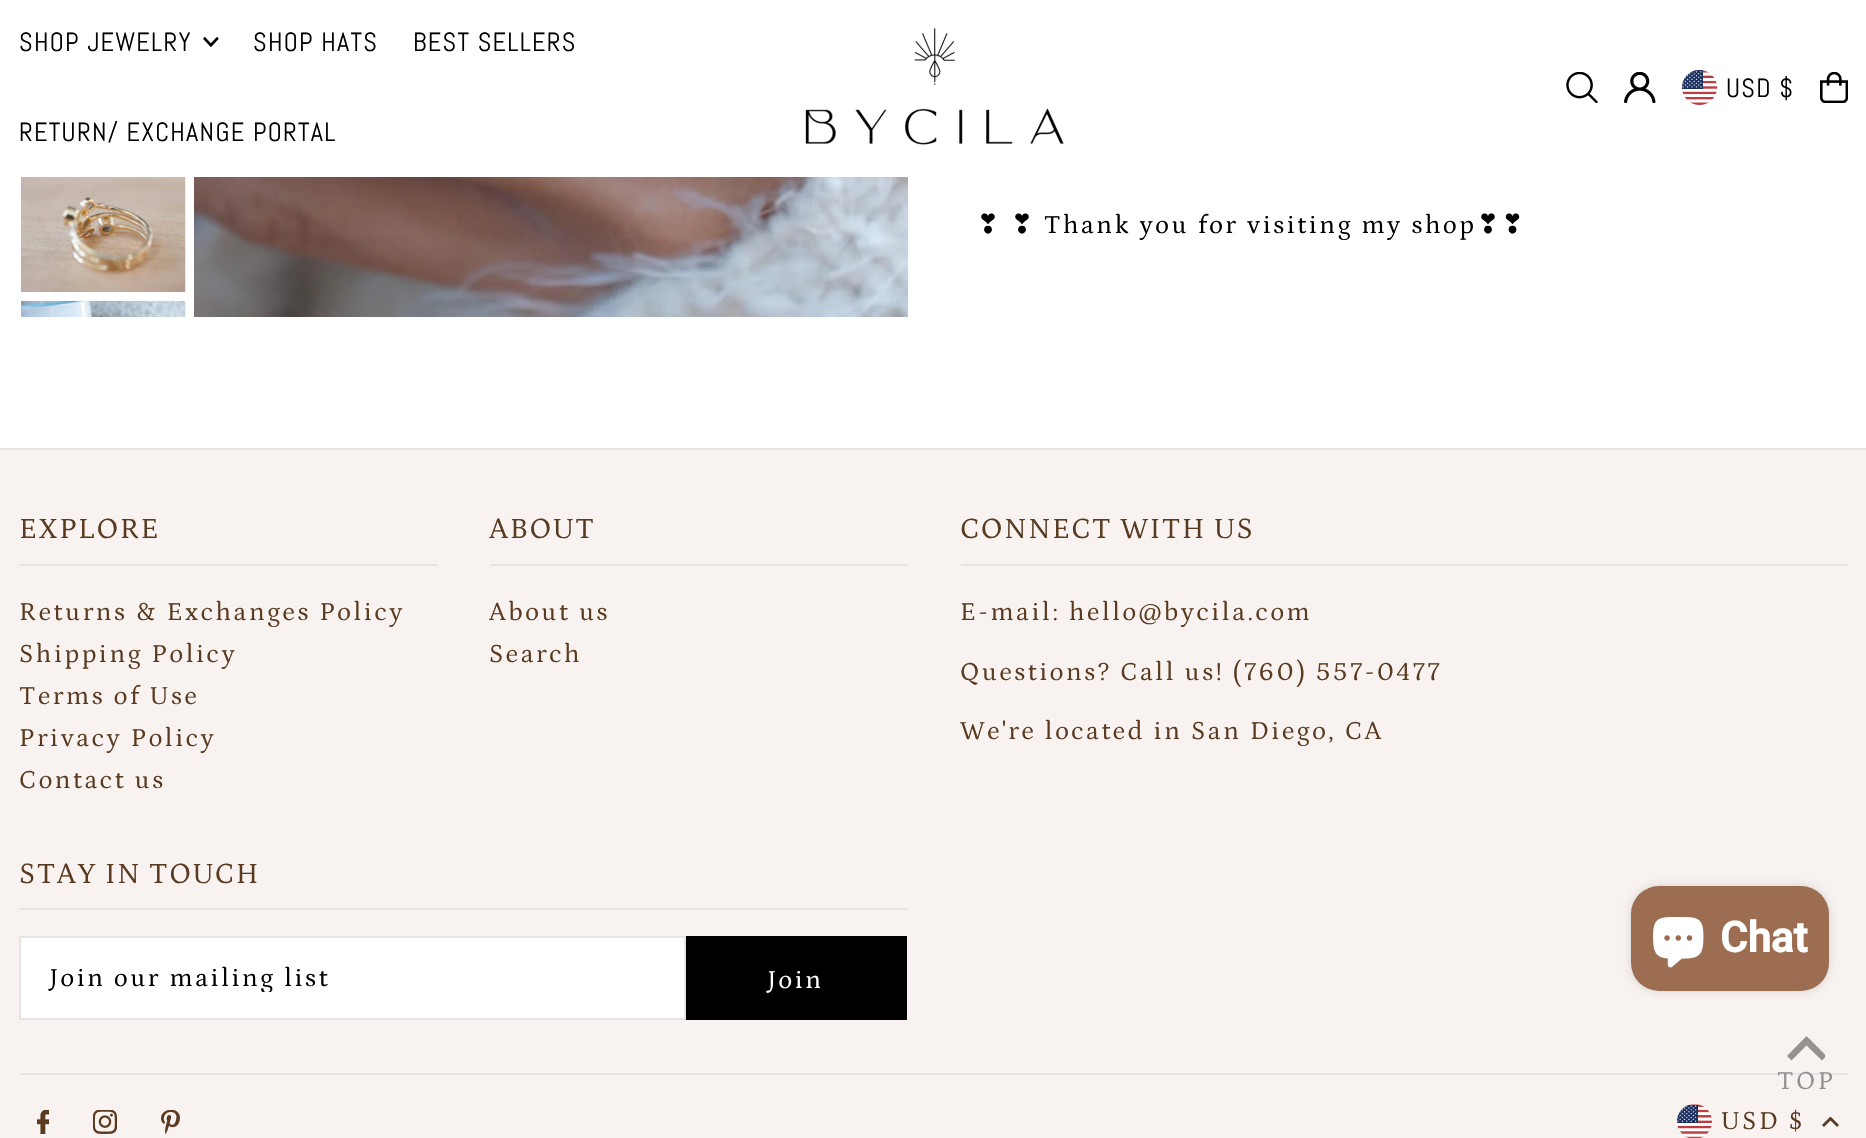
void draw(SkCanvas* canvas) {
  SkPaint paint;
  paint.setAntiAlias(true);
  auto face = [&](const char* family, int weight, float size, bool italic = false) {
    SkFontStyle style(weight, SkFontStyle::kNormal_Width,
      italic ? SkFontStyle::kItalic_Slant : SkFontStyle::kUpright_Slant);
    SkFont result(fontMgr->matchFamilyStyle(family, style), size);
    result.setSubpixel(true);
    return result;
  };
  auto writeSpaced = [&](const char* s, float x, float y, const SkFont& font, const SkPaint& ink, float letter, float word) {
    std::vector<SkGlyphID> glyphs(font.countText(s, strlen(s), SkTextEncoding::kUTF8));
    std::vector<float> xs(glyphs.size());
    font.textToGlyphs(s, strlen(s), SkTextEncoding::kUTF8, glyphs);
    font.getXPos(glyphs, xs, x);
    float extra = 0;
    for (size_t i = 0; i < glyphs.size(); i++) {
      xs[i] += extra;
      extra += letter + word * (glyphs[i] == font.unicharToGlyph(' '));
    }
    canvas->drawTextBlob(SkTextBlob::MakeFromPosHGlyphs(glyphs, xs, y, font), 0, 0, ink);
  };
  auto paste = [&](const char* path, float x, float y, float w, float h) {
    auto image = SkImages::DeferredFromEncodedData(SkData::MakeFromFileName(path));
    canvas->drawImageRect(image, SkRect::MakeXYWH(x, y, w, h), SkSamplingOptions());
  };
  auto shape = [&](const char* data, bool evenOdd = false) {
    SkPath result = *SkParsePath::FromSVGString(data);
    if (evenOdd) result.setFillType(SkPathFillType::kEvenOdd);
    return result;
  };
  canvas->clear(0xffffffff);
  paste("img/1.png", 203, 37, 16, 10);
  paste("img/2.png", 805, 28, 259, 117);
  paste("img/3.png", 1566, 72, 32, 31);
  paste("img/4.png", 1624, 72, 32, 31);
  paste("img/5.png", 1682, 70, 35, 35);
  paste("img/6.png", 1820, 72, 28, 31);
  paste("img/7.png", 21, 177, 165, 115);
  paste("img/8.png", 21, 300, 165, 17);
  paste("img/9.png", 194, 177, 714, 140);
  {
    const struct { float x, y, w, h; SkColor color; } items[] = {
      {0, 450, 1866, 688, 0xfff8f3f0},
      {0, 448, 1866, 2, 0xffe5e5e5},
      {19, 564, 419, 2, 0xffe5e5e5},
      {490, 564, 418, 2, 0xffe5e5e5},
      {961, 564, 887, 2, 0xffe5e5e5},
      {19, 908, 889, 2, 0xffe5e5e5},
    };
    for (auto [x, y, w, h, color] : items) {
      paint.setColor(color);
      canvas->drawRect(SkRect::MakeXYWH(x, y, w, h), paint);
    }
  }
  paint.setColor(0xffffffff);
  canvas->drawRect(SkRect::MakeXYWH(20, 937, 665, 82), paint);
  paint.setStroke(true);
  paint.setStrokeWidth(2);
  paint.setColor(0xffe5e5e5);
  canvas->drawRect(SkRect::MakeXYWH(20, 937, 665, 82), paint);
  paint.setStroke(false);
  paint.setColor(0xff000000);
  canvas->drawRect(SkRect::MakeXYWH(686, 936, 221, 84), paint);
  paint.setColor(0xffe5e5e5);
  canvas->drawRect(SkRect::MakeXYWH(19, 1073, 1829, 2), paint);
  paste("img/10.png", 37, 1110, 12, 24);
  paste("img/11.png", 93, 1110, 24, 24);
  paste("img/12.png", 161, 1110, 19, 24);
  paste("img/13.png", 1677, 1104, 35, 34);
  paste("img/14.png", 1822, 1117, 17, 10);
  paint.setColor(0x26000000);
  paint.setMaskFilter(SkMaskFilter::MakeBlur(kNormal_SkBlurStyle, 4.5f));
  canvas->drawRoundRect(SkRect::MakeXYWH(1631, 886, 198, 105), 28, 28, paint);
  paint.setMaskFilter(nullptr);
  paint.setColor(0xff9c6d51);
  canvas->drawRoundRect(SkRect::MakeXYWH(1631, 886, 198, 105), 28, 28, paint);
  paste("img/15.png", 1653, 917, 51, 51);
  canvas->save();
  canvas->clipRect(SkRect::MakeXYWH(1787, 1036, 38, 25));
  paint.setColor(0xff959290);
  canvas->drawPath(shape("M1806.5 1036L1787 1056L1791.5 1060.5L1806.5 1045.5L1822 1060.5L1826.5 1056Z"), paint);
  canvas->restore();
  auto f0 = face("Abel", 400, 26.25f);
  paint.setColor(0xff000000);
  {
    const struct { const char* s; float x, y; } items[] = {
      {"SHOP JEWELRY", 19, 51},
      {"SHOP HATS", 253, 51},
      {"BEST SELLERS", 413, 51},
      {"RETURN/ EXCHANGE PORTAL", 19, 141},
      {"USD $", 1726, 97},
    };
    for (auto [s, x, y] : items) {
      writeSpaced(s, x, y, f0, paint, 1.3f, 0);
    }
  }
  auto f1 = face("DejaVu Sans", 400, 26.25f);
  writeSpaced("❣", 977, 233, f1, paint, 2.6f, 0);
  writeSpaced("❣", 1011, 233, f1, paint, 2.6f, 0);
  auto f2 = face("Petrona", 400, 26.25f);
  writeSpaced("Thank you for visiting my shop", 1044, 233, f2, paint, 2.6f, 0);
  writeSpaced("❣❣", 1477, 233, f1, paint, 2.6f, 0);
  auto f3 = face("Petrona", 400, 29.75f);
  paint.setColor(0xff5a3b21);
  writeSpaced("EXPLORE", 19, 538, f3, paint, 1.5f, 0);
  {
    const struct { const char* s; float x, y; } items[] = {
      {"Returns & Exchanges Policy", 19, 620},
      {"Shipping Policy", 19, 662},
      {"Terms of Use", 19, 704},
      {"Privacy Policy", 19, 746},
      {"Contact us", 19, 788},
    };
    for (auto [s, x, y] : items) {
      writeSpaced(s, x, y, f2, paint, 2.6f, 0);
    }
  }
  writeSpaced("ABOUT", 489, 538, f3, paint, 1.5f, 0);
  writeSpaced("About us", 489, 620, f2, paint, 2.6f, 0);
  writeSpaced("Search", 489, 662, f2, paint, 2.6f, 0);
  writeSpaced("CONNECT WITH US", 960, 538, f3, paint, 1.5f, 0);
  {
    const struct { const char* s; float x, y; } items[] = {
      {"E-mail: hello@bycila.com", 960, 620},
      {"Questions? Call us! (760) 557-0477", 960, 680},
      {"We're located in San Diego, CA", 960, 739},
    };
    for (auto [s, x, y] : items) {
      writeSpaced(s, x, y, f2, paint, 2.6f, 0);
    }
  }
  writeSpaced("STAY IN TOUCH", 19, 883, f3, paint, 1.5f, 0);
  canvas->save();
  canvas->clipRect(SkRect::MakeXYWH(21, 963, 663, 29));
  paint.setColor(0xff000000);
  writeSpaced("Join our mailing list", 50, 986, f2, paint, 2.6f, 0);
  canvas->restore();
  paint.setColor(0xffffffff);
  writeSpaced("Join", 768, 988, f2, paint, 2.6f, 0);
  paint.setColor(0xff5a3b21);
  writeSpaced("USD $", 1721, 1129, f2, paint, 2.6f, 0);
  auto f4 = face("Roboto", 700, 42);
  paint.setColor(0xffffffff);
  canvas->drawString("Chat", 1720, 952, f4, paint);
  paint.setColor(0xff93908f);
  writeSpaced("TOP", 1777, 1089, f2, paint, 2.6f, 0);
}
